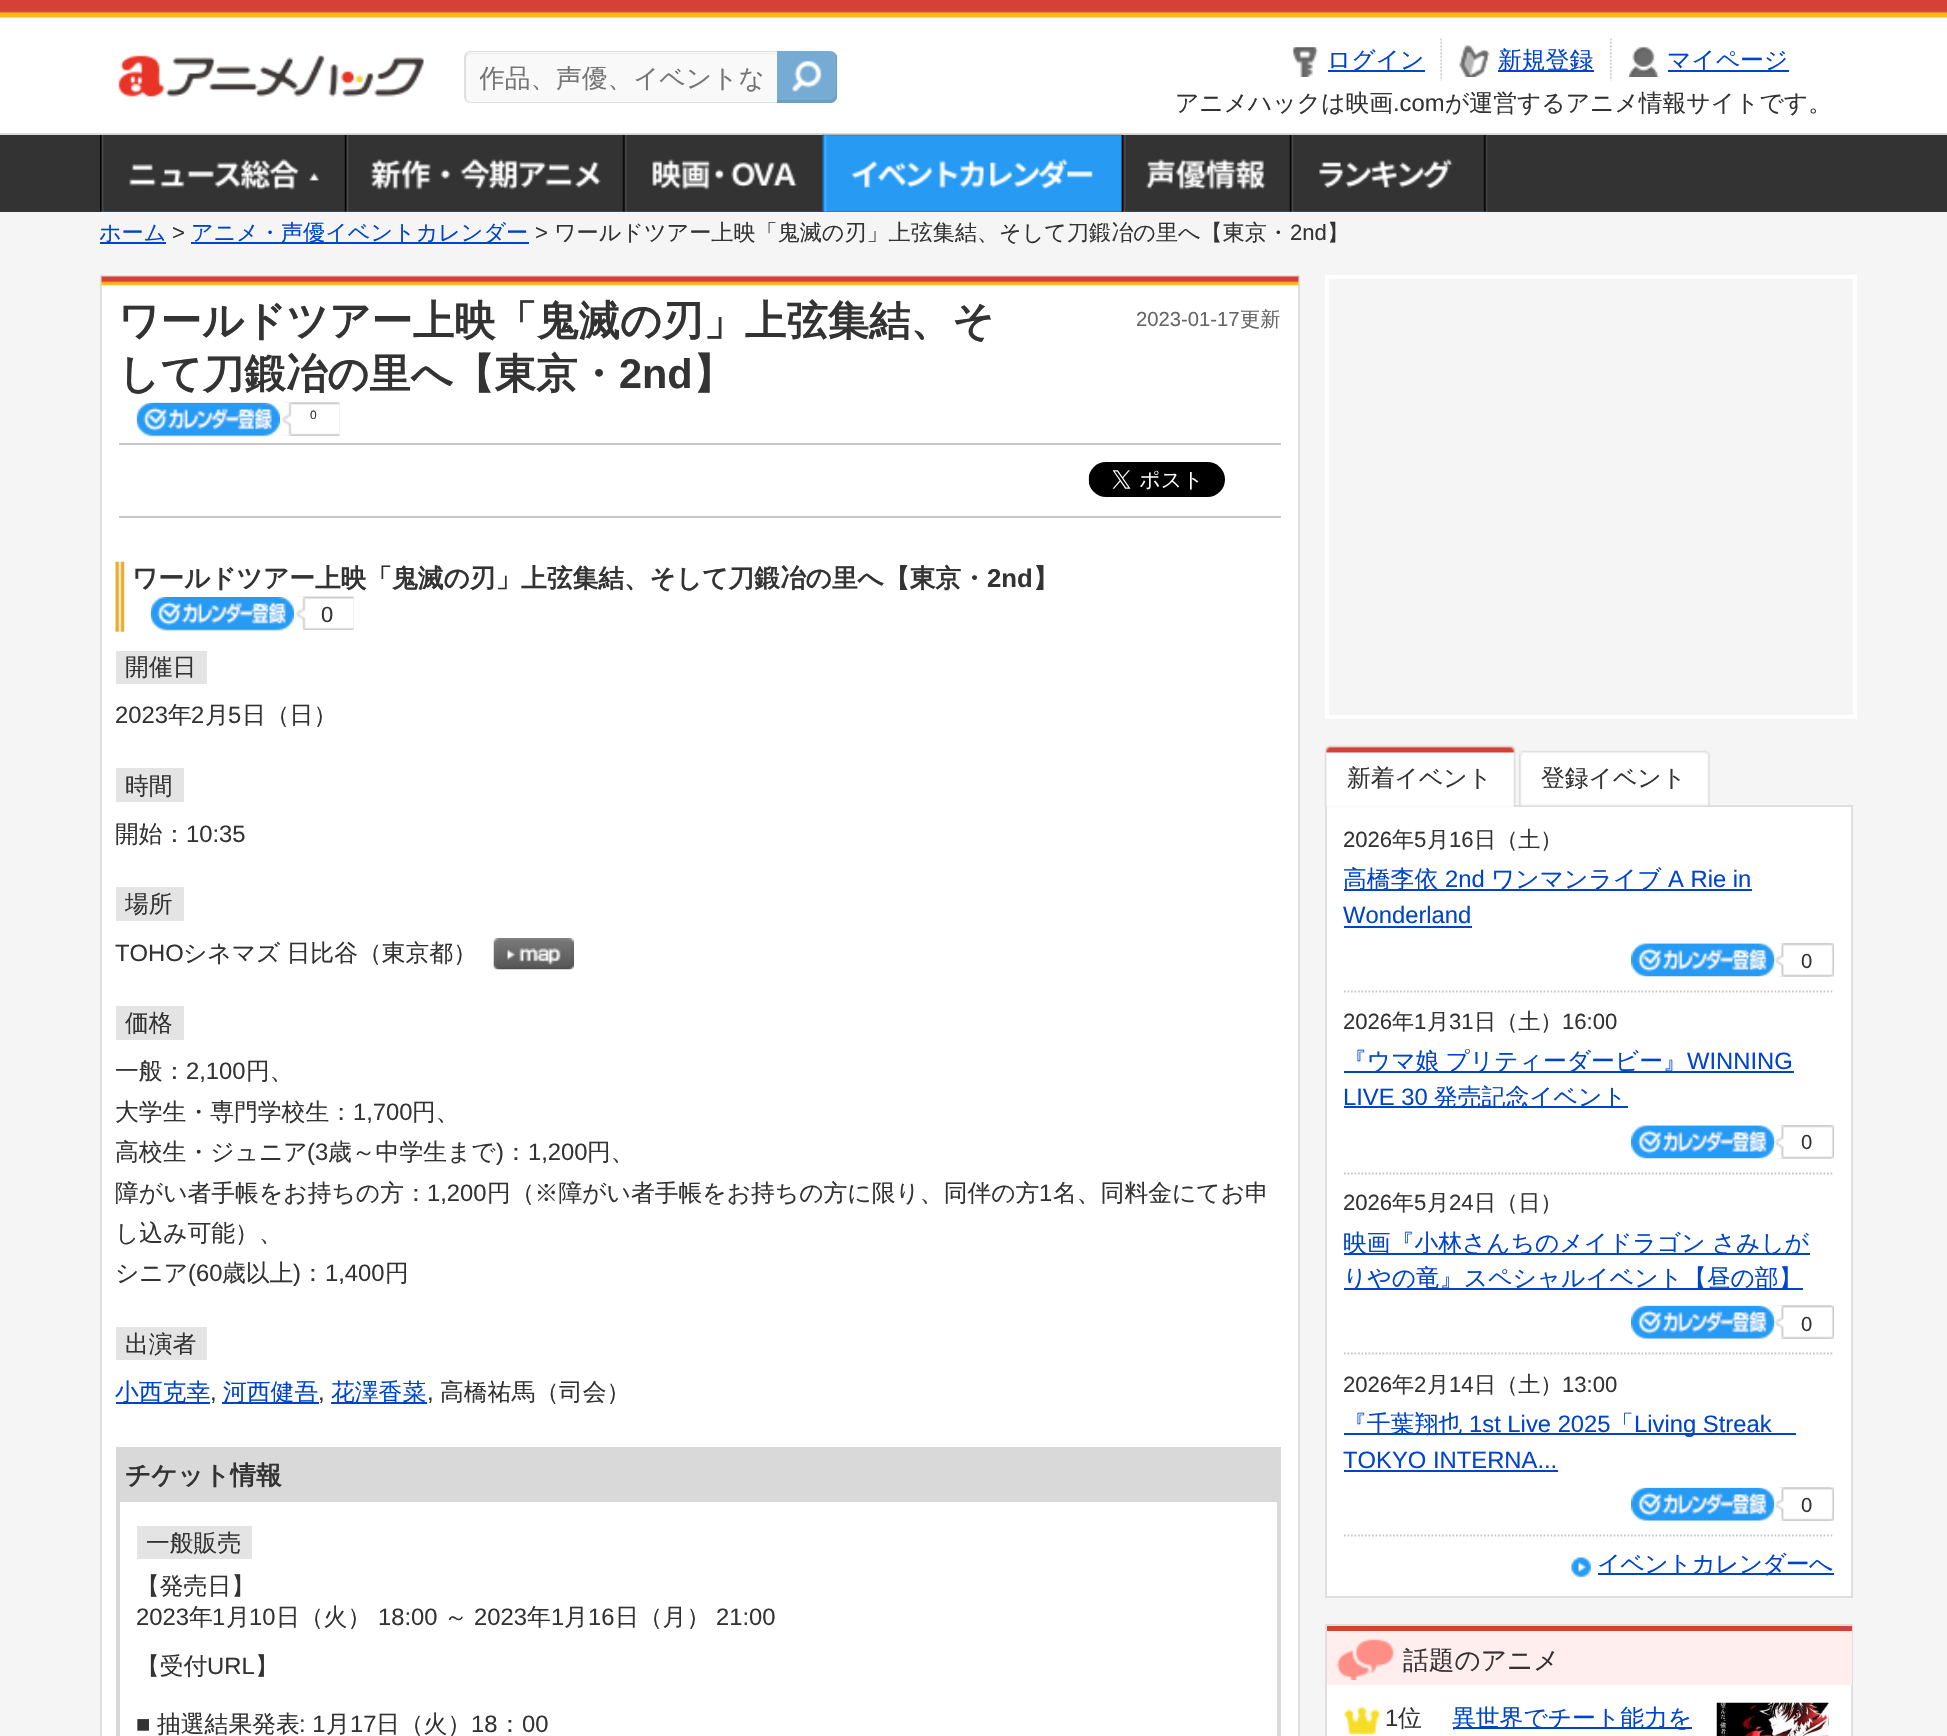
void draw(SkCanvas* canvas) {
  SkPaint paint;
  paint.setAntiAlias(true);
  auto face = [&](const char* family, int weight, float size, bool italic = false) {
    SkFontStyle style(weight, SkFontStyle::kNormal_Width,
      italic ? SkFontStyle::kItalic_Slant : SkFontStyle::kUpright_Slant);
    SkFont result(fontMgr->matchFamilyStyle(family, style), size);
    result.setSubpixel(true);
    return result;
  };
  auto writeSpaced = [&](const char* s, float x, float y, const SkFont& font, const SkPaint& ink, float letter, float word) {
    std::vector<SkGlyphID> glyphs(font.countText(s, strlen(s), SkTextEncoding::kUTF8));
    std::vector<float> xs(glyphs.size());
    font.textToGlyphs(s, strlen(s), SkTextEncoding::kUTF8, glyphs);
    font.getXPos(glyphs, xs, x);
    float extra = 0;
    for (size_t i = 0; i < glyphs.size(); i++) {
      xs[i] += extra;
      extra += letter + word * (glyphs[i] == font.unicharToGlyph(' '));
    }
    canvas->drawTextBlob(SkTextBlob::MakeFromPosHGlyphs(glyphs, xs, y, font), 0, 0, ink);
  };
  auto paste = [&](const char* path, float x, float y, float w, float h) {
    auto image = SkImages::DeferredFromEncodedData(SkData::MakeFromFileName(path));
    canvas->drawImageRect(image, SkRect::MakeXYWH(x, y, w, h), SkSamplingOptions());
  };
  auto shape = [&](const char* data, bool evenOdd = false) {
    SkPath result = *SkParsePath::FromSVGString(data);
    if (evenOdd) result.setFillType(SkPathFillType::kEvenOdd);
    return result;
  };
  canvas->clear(0xfff5f5f5);
  paint.setColor(0xffffffff);
  canvas->drawRect(SkRect::MakeXYWH(0, 17, 1947, 116), paint);
  paste("img/1.png", 0, 0, 1947, 18);
  paint.setColor(0xffdbdbdb);
  canvas->drawRect(SkRect::MakeXYWH(0, 133, 1947, 2), paint);
  paste("img/2.png", 118, 55, 306, 42);
  paint.setColor(0xfff9f9f9);
  canvas->drawPath(shape("M471 51H777V103H471C467 103 464 100 464 96V58C464 54 467 51 471 51Z"), paint);
  paint.setColor(0xffedecec);
  canvas->drawPath(shape("M471 54H777V53H470C466 54 466 57 466 60C466 57 468 54 471 54Z"), paint);
  paint.setColor(0xffdfdfdf);
  canvas->drawPath(shape("M471 51H777V103H471C467 103 464 100 464 96V58C464 54 467 51 471 51ZM471 52H777V102H471C468 102 466 99 466 96V58C466 55 468 52 471 52Z", true), paint);
  paint.setColor(0xff76abd4);
  canvas->drawPath(shape("M777 51H830C834 51 837 54 837 58V96C837 100 834 103 830 103H777Z"), paint);
  paint.setColor(0xff6d9ec3);
  canvas->drawPath(shape("M777 100V103H830C834 103 837 100 837 96V58C837 57 837 55 836 54V93C836 97 833 100 830 100Z"), paint);
  paste("img/3.png", 792, 60, 30, 32);
  paste("img/4.png", 1440, 38, 2, 43);
  paste("img/5.png", 1292, 47, 26, 30);
  paint.setColor(0xff0044cc);
  canvas->drawRect(SkRect::MakeXYWH(1328, 70, 97, 2), paint);
  paste("img/6.png", 1610, 38, 2, 43);
  paste("img/7.png", 1459, 45, 31, 32);
  canvas->drawRect(SkRect::MakeXYWH(1498, 70, 96, 2), paint);
  paste("img/8.png", 1629, 46, 29, 31);
  canvas->drawRect(SkRect::MakeXYWH(1668, 70, 121, 2), paint);
  paint.setColor(0xff333333);
  canvas->drawRect(SkRect::MakeXYWH(0, 135, 1947, 77), paint);
  paste("img/9.png", 100, 134, 245, 78);
  paste("img/10.png", 345, 134, 278, 78);
  paste("img/11.png", 623, 134, 200, 78);
  paste("img/12.png", 822, 134, 300, 78);
  paste("img/13.png", 1121, 134, 169, 78);
  paste("img/14.png", 1290, 134, 198, 78);
  {
    const struct { float x, y, w, h; SkColor color; } items[] = {
      {100, 242, 66, 2, 0xff0044cc},
      {191, 242, 338, 2, 0xff0044cc},
      {102, 285, 1196, 1451, 0xffffffff},
    };
    for (auto [x, y, w, h, color] : items) {
      paint.setColor(color);
      canvas->drawRect(SkRect::MakeXYWH(x, y, w, h), paint);
    }
  }
  paint.setStroke(true);
  paint.setStrokeWidth(2);
  paint.setColor(0xffdedede);
  canvas->drawRect(SkRect::MakeXYWH(101, 276, 1198, 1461), paint);
  paste("img/15.png", 101, 276, 1198, 10);
  paint.setStroke(false);
  paint.setColor(0xffc7c7c7);
  canvas->drawRect(SkRect::MakeXYWH(119, 443, 1162, 2), paint);
  paste("img/16.png", 136, 402, 144, 35);
  paste("img/17.png", 283, 402, 57, 34);
  paste("img/18.png", 281, 402, 59, 34);
  canvas->drawRect(SkRect::MakeXYWH(119, 516, 1162, 2), paint);
  paste("img/19.png", 1088, 462, 137, 35);
  paste("img/20.png", 115, 561, 10, 71);
  paste("img/21.png", 150, 597, 144, 34);
  paste("img/22.png", 297, 596, 57, 34);
  paste("img/23.png", 295, 596, 59, 34);
  {
    const struct { float x, y, w, h; SkColor color; } items[] = {
      {116, 651, 91, 33, 0xffe4e4e4},
      {116, 768, 68, 34, 0xffe4e4e4},
      {116, 887, 68, 34, 0xffe4e4e4},
    };
    for (auto [x, y, w, h, color] : items) {
      paint.setColor(color);
      canvas->drawRect(SkRect::MakeXYWH(x, y, w, h), paint);
    }
  }
  paste("img/24.png", 493, 938, 81, 32);
  {
    const struct { float x, y, w, h; SkColor color; } items[] = {
      {116, 1006, 68, 34, 0xffe4e4e4},
      {116, 1327, 91, 33, 0xffe4e4e4},
      {116, 1402, 94, 2, 0xff0044cc},
      {222, 1402, 97, 2, 0xff0044cc},
      {331, 1402, 96, 2, 0xff0044cc},
    };
    for (auto [x, y, w, h, color] : items) {
      paint.setColor(color);
      canvas->drawRect(SkRect::MakeXYWH(x, y, w, h), paint);
    }
  }
  paint.setStroke(true);
  paint.setStrokeWidth(4);
  paint.setColor(0xffd9d9d9);
  canvas->drawRect(SkRect::MakeXYWH(118, 1449, 1161, 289), paint);
  paint.setStroke(false);
  canvas->drawRect(SkRect::MakeXYWH(120, 1451, 1157, 51), paint);
  paint.setColor(0xffe4e4e4);
  canvas->drawRect(SkRect::MakeXYWH(137, 1526, 115, 33), paint);
  paint.setStroke(true);
  paint.setColor(0xffffffff);
  canvas->drawRect(SkRect::MakeXYWH(1327, 277, 528, 440), paint);
  paint.setStroke(false);
  canvas->drawRect(SkRect::MakeXYWH(1326, 806, 526, 791), paint);
  paint.setStroke(true);
  paint.setStrokeWidth(2);
  paint.setColor(0xffdedede);
  canvas->drawRect(SkRect::MakeXYWH(1326, 806, 526, 791), paint);
  paste("img/25.png", 1324, 745, 192, 62);
  paste("img/26.png", 1519, 750, 191, 56);
  paint.setStrokeWidth(1.8f);
  paint.setColor(0xffc7c7c7);
  paint.setPathEffect(SkDashPathEffect::Make({{1.75f, 1.75f}}, 0));
  canvas->drawPath(shape("M1344 991.5H1834"), paint);
  paint.setPathEffect(nullptr);
  paint.setStroke(false);
  paint.setColor(0xff0044cc);
  canvas->drawRect(SkRect::MakeXYWH(1344, 889, 408, 2), paint);
  canvas->drawRect(SkRect::MakeXYWH(1344, 926, 128, 2), paint);
  paste("img/28.png", 1778, 943, 56, 34);
  paste("img/29.png", 1774, 943, 57, 34);
  paste("img/27.png", 1631, 943, 144, 34);
  paint.setStroke(true);
  paint.setColor(0xffc7c7c7);
  paint.setPathEffect(SkDashPathEffect::Make({{1.75f, 1.75f}}, 0));
  canvas->drawPath(shape("M1344 1173.5H1834"), paint);
  paint.setPathEffect(nullptr);
  paint.setStroke(false);
  paint.setColor(0xff0044cc);
  canvas->drawRect(SkRect::MakeXYWH(1344, 1071, 450, 2), paint);
  canvas->drawRect(SkRect::MakeXYWH(1344, 1106, 284, 2), paint);
  paste("img/28.png", 1778, 1125, 56, 34);
  paste("img/29.png", 1774, 1125, 57, 34);
  paste("img/27.png", 1631, 1125, 144, 34);
  paint.setStroke(true);
  paint.setColor(0xffc7c7c7);
  paint.setPathEffect(SkDashPathEffect::Make({{1.75f, 1.75f}}, 0));
  canvas->drawPath(shape("M1344 1353.5H1834"), paint);
  paint.setPathEffect(nullptr);
  paint.setStroke(false);
  paint.setColor(0xff0044cc);
  canvas->drawRect(SkRect::MakeXYWH(1344, 1253, 466, 2), paint);
  canvas->drawRect(SkRect::MakeXYWH(1344, 1288, 459, 2), paint);
  paste("img/31.png", 1778, 1305, 56, 34);
  paste("img/32.png", 1774, 1305, 57, 34);
  paste("img/30.png", 1631, 1305, 144, 34);
  paint.setStroke(true);
  paint.setColor(0xffc7c7c7);
  paint.setPathEffect(SkDashPathEffect::Make({{1.75f, 1.75f}}, 0));
  canvas->drawPath(shape("M1344 1535.5H1834"), paint);
  paint.setPathEffect(nullptr);
  paint.setStroke(false);
  paint.setColor(0xff0044cc);
  canvas->drawRect(SkRect::MakeXYWH(1344, 1433, 452, 2), paint);
  canvas->drawRect(SkRect::MakeXYWH(1344, 1470, 214, 2), paint);
  paste("img/31.png", 1778, 1487, 56, 34);
  paste("img/32.png", 1774, 1487, 57, 34);
  paste("img/30.png", 1631, 1487, 144, 34);
  paste("img/33.png", 1571, 1557, 20, 21);
  canvas->drawRect(SkRect::MakeXYWH(1598, 1573, 236, 2), paint);
  paint.setColor(0xffffffff);
  canvas->drawRect(SkRect::MakeXYWH(1327, 1685, 524, 51), paint);
  paint.setStroke(true);
  paint.setStrokeWidth(2);
  paint.setColor(0xffdedede);
  canvas->drawRect(SkRect::MakeXYWH(1326, 1625, 526, 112), paint);
  paint.setStroke(false);
  paint.setColor(0xffffeeed);
  canvas->drawRect(SkRect::MakeXYWH(1327, 1631, 525, 54), paint);
  paint.setColor(0xffd54137);
  canvas->drawRect(SkRect::MakeXYWH(1327, 1626, 525, 5), paint);
  paste("img/34.png", 1336, 1639, 58, 41);
  paste("img/35.png", 1344, 1706, 37, 29);
  paint.setColor(0xff0044cc);
  canvas->drawRect(SkRect::MakeXYWH(1453, 1727, 239, 2), paint);
  paste("img/36.png", 1716, 1702, 113, 34);
  canvas->save();
  canvas->clipRect(SkRect::MakeXYWH(480, 63, 283, 33));
  auto f0 = face("WenQuanYi Zen Hei", 500, 25.7f);
  paint.setColor(0xff757575);
  canvas->drawString("作品、声優、イベントな", 479, 87, f0, paint);
  canvas->restore();
  auto f1 = face("WenQuanYi Zen Hei", 500, 23.8f);
  paint.setColor(0xff0044cc);
  {
    const struct { const char* s; float x, y; } items[] = {
      {"ログイン", 1327, 68},
      {"新規登録", 1498, 68},
      {"マイページ", 1667, 68},
    };
    for (auto [s, x, y] : items) {
      canvas->drawString(s, x, y, f1, paint);
    }
  }
  paint.setColor(0xff333333);
  canvas->drawString("アニメハックは映画", 1175, 111, f1, paint);
  auto f2 = face("Liberation Sans", 400, 23.8f);
  canvas->drawString(".com", 1393, 111, f2, paint);
  canvas->drawString("が運営するアニメ情報サイトです。", 1445, 111, f1, paint);
  auto f3 = face("WenQuanYi Zen Hei", 500, 22.1f);
  paint.setColor(0xff0044cc);
  canvas->drawString("ホーム", 99, 240, f3, paint);
  auto f4 = face("Liberation Sans", 400, 22.1f);
  paint.setColor(0xff333333);
  canvas->drawString(">", 172, 240, f4, paint);
  paint.setColor(0xff0044cc);
  canvas->drawString("アニメ・声優イベントカレンダー", 191, 240, f3, paint);
  paint.setColor(0xff333333);
  canvas->drawString(">", 535, 240, f4, paint);
  canvas->drawString("ワールドツアー上映「鬼滅の刃」上弦集結、そして刀鍛冶の里へ【東京・", 554, 240, f3, paint);
  canvas->drawString("2nd", 1290, 240, f4, paint);
  canvas->drawString("】", 1327, 240, f3, paint);
  auto f5 = face("WenQuanYi Zen Hei", 700, 41.4f);
  canvas->drawString("ワールドツアー上映「鬼滅の刃」上弦集結、そ", 118, 335, f5, paint);
  canvas->drawString("して刀鍛冶の里へ【東京・", 118, 388, f5, paint);
  auto f6 = face("Liberation Sans", 700, 41.4f);
  canvas->drawString("2nd", 619, 388, f6, paint);
  canvas->drawString("】", 693, 388, f5, paint);
  auto f7 = face("Liberation Sans", 400, 20.25f);
  paint.setColor(0xff666666);
  canvas->drawString("2023-01-17", 1136, 326, f7, paint);
  auto f8 = face("WenQuanYi Zen Hei", 500, 20.25f);
  canvas->drawString("更新", 1240, 326, f8, paint);
  auto f9 = face("Liberation Sans", 400, 12);
  paint.setColor(0xff333333);
  canvas->drawString("0", 310, 419, f9, paint);
  auto f10 = face("WenQuanYi Zen Hei", 700, 25.7f);
  canvas->drawString("ワールドツアー上映「鬼滅の刃」上弦集結、そして刀鍛冶の里へ【東京・", 132, 587, f10, paint);
  auto f11 = face("Liberation Sans", 700, 25.7f);
  canvas->drawString("2nd", 987, 587, f11, paint);
  canvas->drawString("】", 1033, 587, f10, paint);
  auto f12 = face("Liberation Sans", 400, 22);
  canvas->drawString("0", 321, 622, f12, paint);
  canvas->drawString("開催日", 125, 675, f1, paint);
  canvas->drawString("2023", 115, 723, f2, paint);
  canvas->drawString("年", 168, 723, f1, paint);
  canvas->drawString("2", 191, 723, f2, paint);
  canvas->drawString("月", 205, 723, f1, paint);
  canvas->drawString("5", 228, 723, f2, paint);
  {
    const struct { const char* s; float x, y; } items[] = {
      {"日（日）", 242, 723},
      {"時間", 125, 794},
      {"開始：", 115, 842},
    };
    for (auto [s, x, y] : items) {
      canvas->drawString(s, x, y, f1, paint);
    }
  }
  canvas->drawString("10:35", 186, 842, f2, paint);
  canvas->drawString("場所", 125, 912, f1, paint);
  canvas->drawString("TOHO", 115, 961, f2, paint);
  writeSpaced("シネマズ 日比谷（東京都）", 183, 961, f1, paint, 0, -1);
  canvas->drawString("価格", 125, 1031, f1, paint);
  canvas->drawString("一般：", 115, 1079, f1, paint);
  canvas->drawString("2,100", 186, 1079, f2, paint);
  canvas->drawString("円、", 246, 1079, f1, paint);
  canvas->drawString("大学生・専門学校生：", 115, 1120, f1, paint);
  canvas->drawString("1,700", 353, 1120, f2, paint);
  canvas->drawString("円、", 412, 1120, f1, paint);
  canvas->drawString("高校生・ジュニア", 115, 1160, f1, paint);
  canvas->drawString("(3", 307, 1160, f2, paint);
  canvas->drawString("歳～中学生まで", 328, 1160, f1, paint);
  canvas->drawString(")", 496, 1160, f2, paint);
  canvas->drawString("：", 504, 1160, f1, paint);
  canvas->drawString("1,200", 528, 1160, f2, paint);
  canvas->drawString("円、", 587, 1160, f1, paint);
  canvas->drawString("障がい者手帳をお持ちの方：", 115, 1201, f1, paint);
  canvas->drawString("1,200", 427, 1201, f2, paint);
  canvas->drawString("円（※障がい者手帳をお持ちの方に限り、同伴の方", 487, 1201, f1, paint);
  canvas->drawString("1", 1039, 1201, f2, paint);
  {
    const struct { const char* s; float x, y; } items[] = {
      {"名、同料金にてお申", 1053, 1201},
      {"し込み可能）、", 115, 1241},
      {"シニア", 115, 1281},
    };
    for (auto [s, x, y] : items) {
      canvas->drawString(s, x, y, f1, paint);
    }
  }
  canvas->drawString("(60", 188, 1281, f2, paint);
  canvas->drawString("歳以上", 222, 1281, f1, paint);
  canvas->drawString(")", 293, 1281, f2, paint);
  canvas->drawString("：", 301, 1281, f1, paint);
  canvas->drawString("1,400", 325, 1281, f2, paint);
  canvas->drawString("円", 385, 1281, f1, paint);
  canvas->drawString("出演者", 125, 1352, f1, paint);
  paint.setColor(0xff0044cc);
  canvas->drawString("小西克幸", 115, 1400, f1, paint);
  paint.setColor(0xff333333);
  canvas->drawString(",", 210, 1400, f2, paint);
  paint.setColor(0xff0044cc);
  canvas->drawString("河西健吾", 223, 1400, f1, paint);
  paint.setColor(0xff333333);
  canvas->drawString(",", 318, 1400, f2, paint);
  paint.setColor(0xff0044cc);
  canvas->drawString("花澤香菜", 331, 1400, f1, paint);
  paint.setColor(0xff333333);
  canvas->drawString(",", 427, 1400, f2, paint);
  canvas->drawString("高橋祐馬（司会）", 440, 1400, f1, paint);
  canvas->drawString("チケット情報", 125, 1484, f10, paint);
  canvas->drawString("一般販売", 146, 1551, f1, paint);
  canvas->drawString("【発売日】", 136, 1594, f1, paint);
  canvas->drawString("2023", 136, 1625, f2, paint);
  canvas->drawString("年", 189, 1625, f1, paint);
  canvas->drawString("1", 212, 1625, f2, paint);
  canvas->drawString("月", 226, 1625, f1, paint);
  canvas->drawString("10", 249, 1625, f2, paint);
  canvas->drawString("日（火）", 276, 1625, f1, paint);
  canvas->drawString("18:00", 378, 1625, f2, paint);
  canvas->drawString("～", 444, 1625, f1, paint);
  canvas->drawString("2023", 474, 1625, f2, paint);
  canvas->drawString("年", 527, 1625, f1, paint);
  canvas->drawString("1", 551, 1625, f2, paint);
  canvas->drawString("月", 564, 1625, f1, paint);
  canvas->drawString("16", 588, 1625, f2, paint);
  canvas->drawString("日（月）", 615, 1625, f1, paint);
  canvas->drawString("21:00", 716, 1625, f2, paint);
  canvas->drawString("【受付", 136, 1674, f1, paint);
  canvas->drawString("URL", 207, 1674, f2, paint);
  canvas->drawString("】", 255, 1674, f1, paint);
  canvas->drawString("■", 136, 1732, f2, paint);
  canvas->drawString("抽選結果発表", 157, 1732, f1, paint);
  canvas->drawString(": 1", 299, 1732, f2, paint);
  canvas->drawString("月", 326, 1732, f1, paint);
  canvas->drawString("17", 350, 1732, f2, paint);
  canvas->drawString("日（火）", 376, 1732, f1, paint);
  canvas->drawString("18", 471, 1732, f2, paint);
  canvas->drawString("：", 498, 1732, f1, paint);
  canvas->drawString("00", 522, 1732, f2, paint);
  canvas->drawString("新着イベント", 1347, 786, f1, paint);
  canvas->drawString("登録イベント", 1541, 786, f1, paint);
  canvas->drawString("2026", 1343, 847, f4, paint);
  canvas->drawString("年", 1392, 847, f3, paint);
  canvas->drawString("5", 1414, 847, f4, paint);
  canvas->drawString("月", 1427, 847, f3, paint);
  canvas->drawString("16", 1449, 847, f4, paint);
  canvas->drawString("日（土）", 1474, 847, f3, paint);
  paint.setColor(0xff0044cc);
  canvas->drawString("高橋李依", 1343, 887, f1, paint);
  canvas->drawString("2nd", 1445, 887, f2, paint);
  canvas->drawString("ワンマンライブ", 1491, 887, f1, paint);
  canvas->drawString("A Rie in", 1668, 887, f2, paint);
  canvas->drawString("Wonderland", 1343, 923, f2, paint);
  paint.setColor(0xff333333);
  canvas->drawString("0", 1801, 968, f7, paint);
  canvas->drawString("2026", 1343, 1029, f4, paint);
  canvas->drawString("年", 1392, 1029, f3, paint);
  canvas->drawString("1", 1414, 1029, f4, paint);
  canvas->drawString("月", 1427, 1029, f3, paint);
  canvas->drawString("31", 1449, 1029, f4, paint);
  canvas->drawString("日（土）", 1474, 1029, f3, paint);
  canvas->drawString("16:00", 1562, 1029, f4, paint);
  paint.setColor(0xff0044cc);
  writeSpaced("『ウマ娘 プリティーダービー』", 1343, 1069, f1, paint, 0, -1);
  canvas->drawString("WINNING", 1687, 1069, f2, paint);
  canvas->drawString("LIVE 30", 1343, 1105, f2, paint);
  canvas->drawString("発売記念イベント", 1434, 1105, f1, paint);
  paint.setColor(0xff333333);
  canvas->drawString("0", 1801, 1149, f7, paint);
  canvas->drawString("2026", 1343, 1210, f4, paint);
  canvas->drawString("年", 1392, 1210, f3, paint);
  canvas->drawString("5", 1414, 1210, f4, paint);
  canvas->drawString("月", 1427, 1210, f3, paint);
  canvas->drawString("24", 1449, 1210, f4, paint);
  canvas->drawString("日（日）", 1474, 1210, f3, paint);
  paint.setColor(0xff0044cc);
  writeSpaced("映画『小林さんちのメイドラゴン さみしが", 1343, 1251, f1, paint, 0, -1);
  canvas->drawString("りやの竜』スペシャルイベント【昼の部】", 1343, 1286, f1, paint);
  paint.setColor(0xff333333);
  canvas->drawString("0", 1801, 1331, f7, paint);
  canvas->drawString("2026", 1343, 1392, f4, paint);
  canvas->drawString("年", 1392, 1392, f3, paint);
  canvas->drawString("2", 1414, 1392, f4, paint);
  canvas->drawString("月", 1427, 1392, f3, paint);
  canvas->drawString("14", 1449, 1392, f4, paint);
  canvas->drawString("日（土）", 1474, 1392, f3, paint);
  canvas->drawString("13:00", 1562, 1392, f4, paint);
  paint.setColor(0xff0044cc);
  canvas->drawString("『千葉翔也", 1343, 1432, f1, paint);
  canvas->drawString("1st Live 2025", 1469, 1432, f2, paint);
  canvas->drawString("「", 1610, 1432, f1, paint);
  canvas->drawString("Living Streak", 1634, 1432, f2, paint);
  canvas->drawString("TOKYO INTERNA...", 1343, 1468, f2, paint);
  paint.setColor(0xff333333);
  canvas->drawString("0", 1801, 1512, f7, paint);
  paint.setColor(0xff0044cc);
  writeSpaced("イベントカレンダーへ", 1597, 1572, f1, paint, -0.75f, 0);
  paint.setColor(0xff333333);
  canvas->drawString("話題のアニメ", 1403, 1669, f0, paint);
  canvas->drawString("1", 1385, 1726, f2, paint);
  canvas->drawString("位", 1398, 1726, f1, paint);
  paint.setColor(0xff0044cc);
  canvas->drawString("異世界でチート能力を", 1452, 1726, f1, paint);
}
